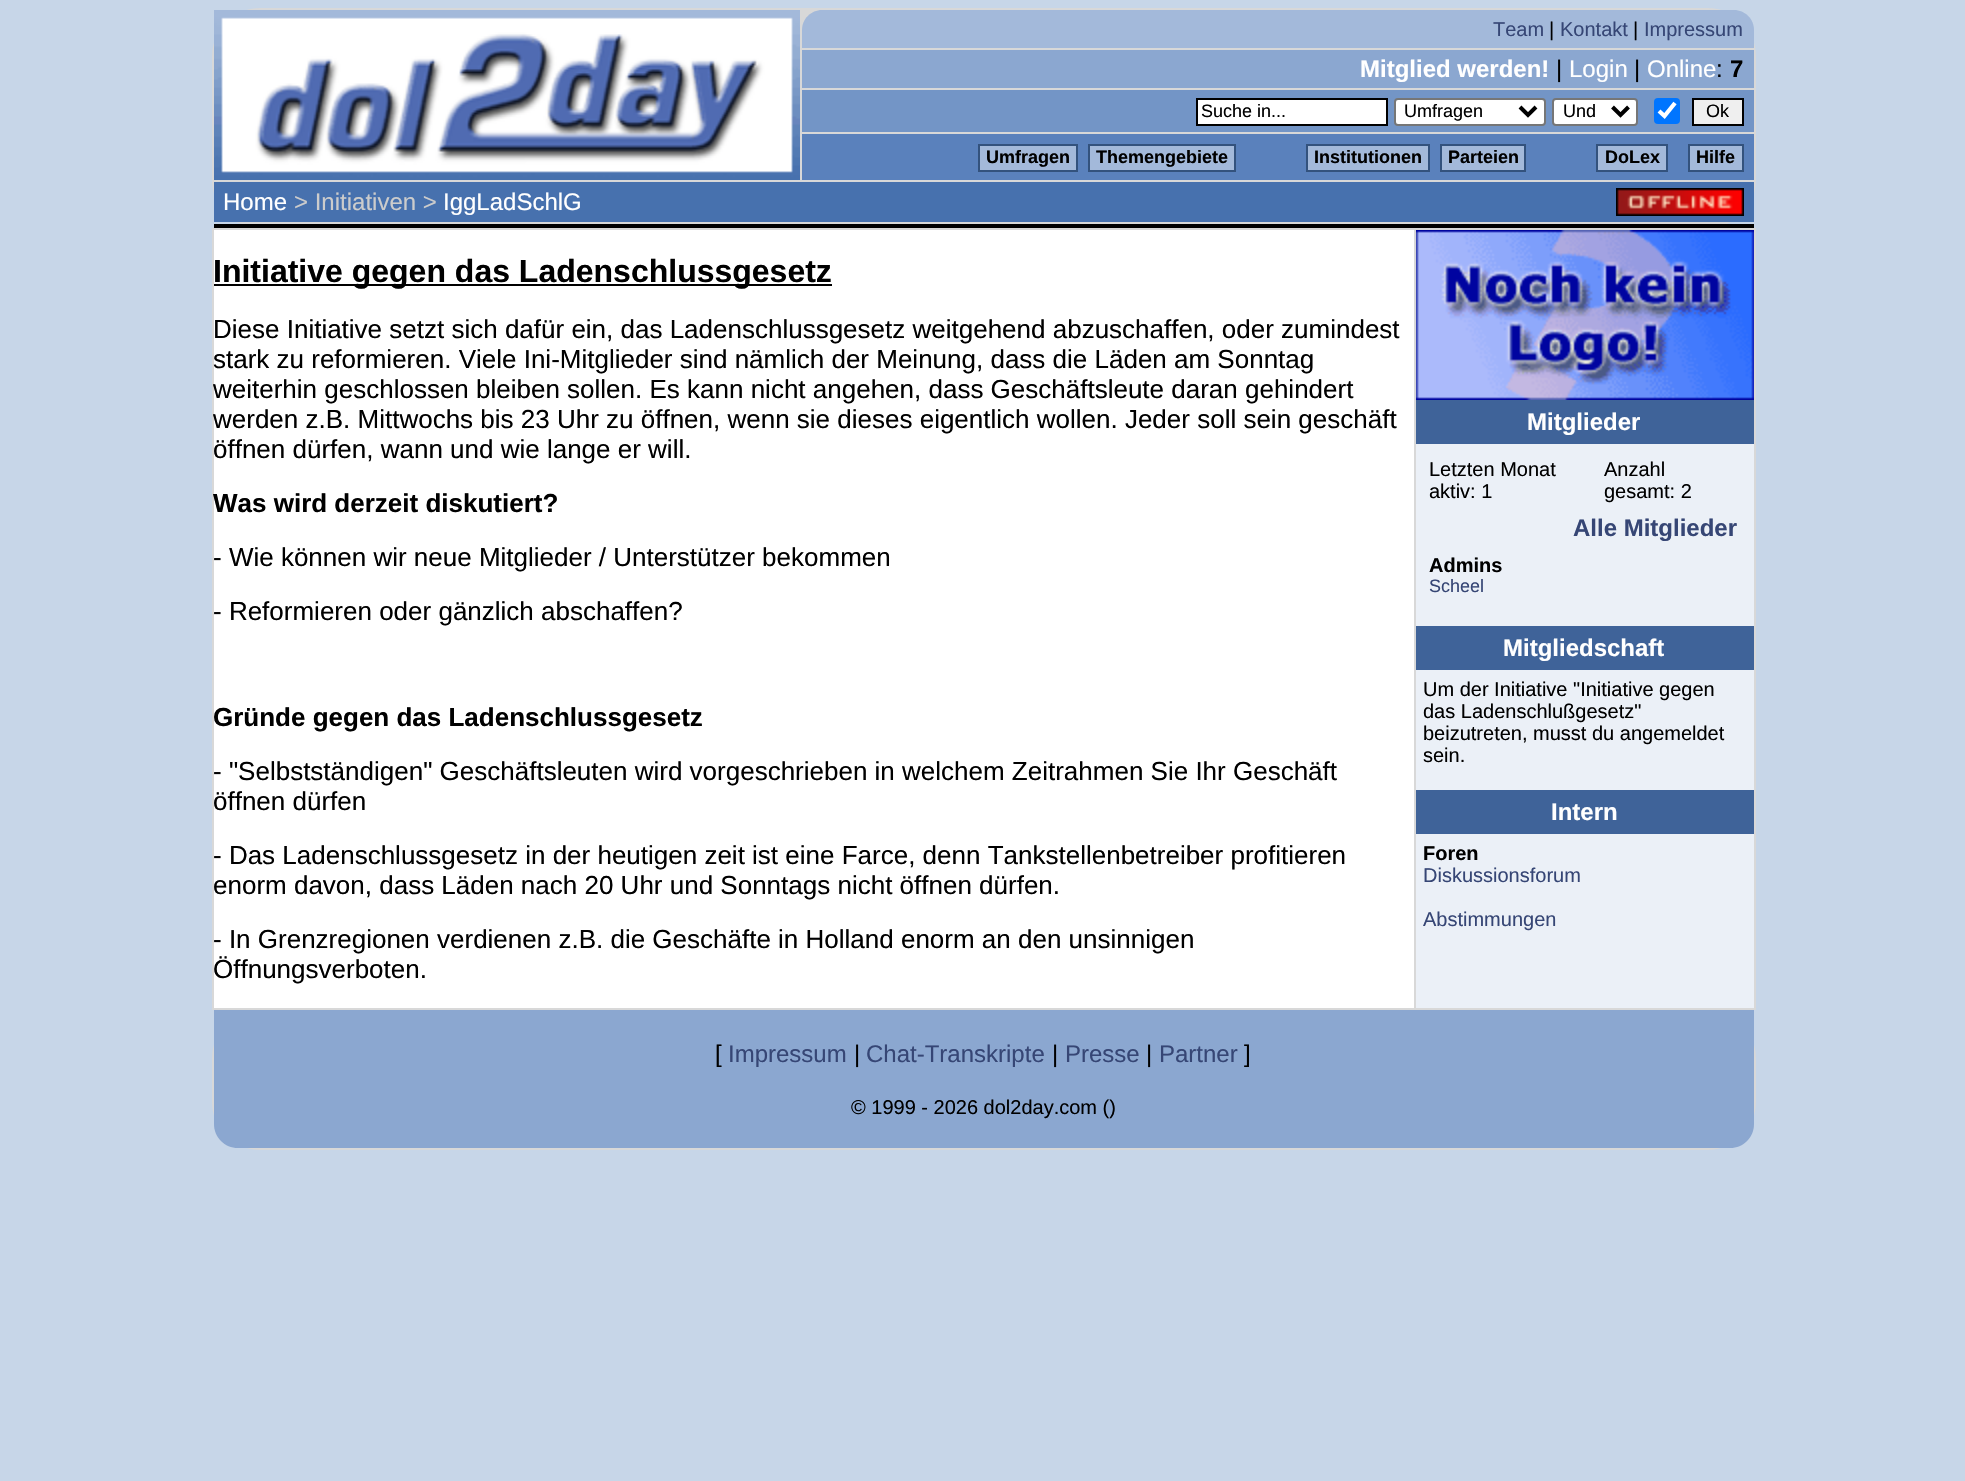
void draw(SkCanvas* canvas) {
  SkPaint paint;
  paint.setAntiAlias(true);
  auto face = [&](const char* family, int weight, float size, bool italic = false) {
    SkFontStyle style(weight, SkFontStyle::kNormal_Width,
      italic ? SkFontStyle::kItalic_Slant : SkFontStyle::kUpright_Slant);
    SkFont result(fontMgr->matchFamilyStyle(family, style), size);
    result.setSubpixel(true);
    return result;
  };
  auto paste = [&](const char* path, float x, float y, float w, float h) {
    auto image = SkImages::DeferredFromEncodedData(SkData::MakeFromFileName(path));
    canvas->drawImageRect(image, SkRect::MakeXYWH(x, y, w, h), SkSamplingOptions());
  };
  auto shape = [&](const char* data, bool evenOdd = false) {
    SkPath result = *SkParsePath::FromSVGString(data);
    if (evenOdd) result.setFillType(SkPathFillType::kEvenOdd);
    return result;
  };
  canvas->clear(0xffc7d6e8);
  paint.setColor(0xffd8d8d8);
  canvas->drawRoundRect(SkRect::MakeXYWH(212, 8, 1544, 220), 48, 48, paint);
  paste("img/1.png", 214, 10, 586, 170);
  paint.setColor(0xffa3b9da);
  canvas->drawPath(shape("M822 10H1734C1745 10 1754 19 1754 30V48H802V30C802 19 811 10 822 10Z"), paint);
  paint.setColor(0xff8ba7d0);
  canvas->drawRect(SkRect::MakeXYWH(802, 50, 952, 38), paint);
  paint.setColor(0xff7395c6);
  canvas->drawRect(SkRect::MakeXYWH(802, 90, 952, 42), paint);
  paint.setColor(0xffffffff);
  canvas->drawRect(SkRect::MakeXYWH(1197, 99, 190, 26), paint);
  paint.setStroke(true);
  paint.setStrokeWidth(2);
  paint.setColor(0xff000000);
  canvas->drawRect(SkRect::MakeXYWH(1197, 99, 190, 26), paint);
  paint.setStroke(false);
  paint.setColor(0xffffffff);
  canvas->drawRoundRect(SkRect::MakeXYWH(1395, 99, 150, 26), 3, 3, paint);
  paint.setStroke(true);
  paint.setColor(0xff767676);
  canvas->drawRoundRect(SkRect::MakeXYWH(1395, 99, 150, 26), 3, 3, paint);
  paint.setStrokeWidth(4);
  paint.setColor(0xff000000);
  canvas->drawPath(shape("M1520 107L1528 115L1536 107"), paint);
  paint.setStroke(false);
  paint.setColor(0xffffffff);
  canvas->drawRoundRect(SkRect::MakeXYWH(1553, 99, 84, 26), 3, 3, paint);
  paint.setStroke(true);
  paint.setStrokeWidth(2);
  paint.setColor(0xff767676);
  canvas->drawRoundRect(SkRect::MakeXYWH(1553, 99, 84, 26), 3, 3, paint);
  paint.setStrokeWidth(4);
  paint.setColor(0xff000000);
  canvas->drawPath(shape("M1612.5 107L1620.5 115L1628.5 107"), paint);
  paint.setStroke(false);
  paint.setColor(0xff0075ff);
  canvas->drawRoundRect(SkRect::MakeXYWH(1654, 98, 26, 26), 4, 4, paint);
  paint.setStroke(true);
  paint.setStrokeWidth(4.2f);
  paint.setColor(0xffffffff);
  canvas->drawPath(shape("M1659 111L1664.5 116L1675 103"), paint);
  paint.setStroke(false);
  paint.setColor(0xffefefef);
  canvas->drawRect(SkRect::MakeXYWH(1693, 99, 50, 26), paint);
  paint.setStroke(true);
  paint.setStrokeWidth(2);
  paint.setColor(0xff000000);
  canvas->drawRect(SkRect::MakeXYWH(1693, 99, 50, 26), paint);
  paint.setStroke(false);
  paint.setColor(0xff5a81bc);
  canvas->drawRect(SkRect::MakeXYWH(802, 134, 952, 46), paint);
  paint.setColor(0xffa3b9da);
  canvas->drawRect(SkRect::MakeXYWH(979, 145, 98, 26), paint);
  paint.setStroke(true);
  paint.setColor(0xff33527d);
  canvas->drawRect(SkRect::MakeXYWH(979, 145, 98, 26), paint);
  paint.setStroke(false);
  paint.setColor(0xffa3b9da);
  canvas->drawRect(SkRect::MakeXYWH(1089, 145, 146, 26), paint);
  paint.setStroke(true);
  paint.setColor(0xff33527d);
  canvas->drawRect(SkRect::MakeXYWH(1089, 145, 146, 26), paint);
  paint.setStroke(false);
  paint.setColor(0xffa3b9da);
  canvas->drawRect(SkRect::MakeXYWH(1307, 145, 122, 26), paint);
  paint.setStroke(true);
  paint.setColor(0xff33527d);
  canvas->drawRect(SkRect::MakeXYWH(1307, 145, 122, 26), paint);
  paint.setStroke(false);
  paint.setColor(0xffa3b9da);
  canvas->drawRect(SkRect::MakeXYWH(1441, 145, 84, 26), paint);
  paint.setStroke(true);
  paint.setColor(0xff33527d);
  canvas->drawRect(SkRect::MakeXYWH(1441, 145, 84, 26), paint);
  paint.setStroke(false);
  paint.setColor(0xffa3b9da);
  canvas->drawRect(SkRect::MakeXYWH(1597, 145, 70, 26), paint);
  paint.setStroke(true);
  paint.setColor(0xff33527d);
  canvas->drawRect(SkRect::MakeXYWH(1597, 145, 70, 26), paint);
  paint.setStroke(false);
  paint.setColor(0xffa3b9da);
  canvas->drawRect(SkRect::MakeXYWH(1689, 145, 54, 26), paint);
  paint.setStroke(true);
  paint.setColor(0xff33527d);
  canvas->drawRect(SkRect::MakeXYWH(1689, 145, 54, 26), paint);
  paint.setStroke(false);
  paint.setColor(0xff4771ae);
  canvas->drawRect(SkRect::MakeXYWH(214, 182, 1540, 40), paint);
  paste("img/2.png", 1616, 188, 128, 28);
  {
    const struct { float x, y, w, h; SkColor color; } items[] = {
      {214, 224, 1540, 4, 0xff000000},
      {212, 228, 1544, 782, 0xffd8d8d8},
      {214, 230, 1200, 778, 0xffffffff},
      {214, 284, 618, 2, 0xff000000},
      {1416, 444, 338, 564, 0xffebf0f7},
    };
    for (auto [x, y, w, h, color] : items) {
      paint.setColor(color);
      canvas->drawRect(SkRect::MakeXYWH(x, y, w, h), paint);
    }
  }
  paste("img/3.png", 1416, 230, 338, 170);
  {
    const struct { float x, y, w, h; SkColor color; } items[] = {
      {1416, 400, 338, 44, 0xff3f6399},
      {1416, 626, 338, 44, 0xff3f6399},
      {1416, 790, 338, 44, 0xff3f6399},
    };
    for (auto [x, y, w, h, color] : items) {
      paint.setColor(color);
      canvas->drawRect(SkRect::MakeXYWH(x, y, w, h), paint);
    }
  }
  paint.setColor(0xffd8d8d8);
  canvas->drawRoundRect(SkRect::MakeXYWH(212, 1010, 1544, 140), 48, 48, paint);
  paint.setColor(0xff8ba7d0);
  canvas->drawPath(shape("M214 1010H1754V1124C1754 1137.5 1743.5 1148 1730 1148H238C224.5 1148 214 1137.5 214 1124Z"), paint);
  auto f0 = face("Liberation Sans", 400, 20);
  paint.setColor(0xff364675);
  canvas->drawString("Team", 1493, 36, f0, paint);
  paint.setColor(0xff000000);
  canvas->drawString("|", 1549, 36, f0, paint);
  paint.setColor(0xff364675);
  canvas->drawString("Kontakt", 1560, 36, f0, paint);
  paint.setColor(0xff000000);
  canvas->drawString("|", 1633, 36, f0, paint);
  paint.setColor(0xff364675);
  canvas->drawString("Impressum", 1644, 36, f0, paint);
  auto f1 = face("Liberation Sans", 700, 24);
  paint.setColor(0xffffffff);
  canvas->drawString("Mitglied werden!", 1360, 77, f1, paint);
  auto f2 = face("Liberation Sans", 400, 24);
  paint.setColor(0xff000000);
  canvas->drawString("|", 1556, 77, f2, paint);
  paint.setColor(0xffffffff);
  canvas->drawString("Login", 1569, 77, f2, paint);
  paint.setColor(0xff000000);
  canvas->drawString("|", 1634, 77, f2, paint);
  paint.setColor(0xffffffff);
  canvas->drawString("Online", 1647, 77, f2, paint);
  paint.setColor(0xff000000);
  canvas->drawString(":", 1716, 77, f2, paint);
  canvas->drawString("7", 1730, 77, f1, paint);
  auto f3 = face("Liberation Sans", 400, 18);
  {
    const struct { const char* s; float x, y; } items[] = {
      {"Suche in...", 1201, 117},
      {"Umfragen", 1404, 117},
      {"Und", 1563, 117},
      {"Ok", 1706, 117},
    };
    for (auto [s, x, y] : items) {
      canvas->drawString(s, x, y, f3, paint);
    }
  }
  auto f4 = face("Liberation Sans", 700, 18);
  {
    const struct { const char* s; float x, y; } items[] = {
      {"Umfragen", 986, 163},
      {"Themengebiete", 1096, 163},
      {"Institutionen", 1314, 163},
      {"Parteien", 1448, 163},
      {"DoLex", 1605, 163},
      {"Hilfe", 1696, 163},
    };
    for (auto [s, x, y] : items) {
      canvas->drawString(s, x, y, f4, paint);
    }
  }
  paint.setColor(0xffffffff);
  canvas->drawString("Home", 223, 210, f2, paint);
  paint.setColor(0xffcccccc);
  canvas->drawString("> Initiativen >", 294, 210, f2, paint);
  paint.setColor(0xffffffff);
  canvas->drawString("IggLadSchlG", 443, 210, f2, paint);
  auto f5 = face("Liberation Sans", 700, 32);
  paint.setColor(0xff000000);
  canvas->drawString("Initiative gegen das Ladenschlussgesetz", 213, 282, f5, paint);
  auto f6 = face("Liberation Sans", 400, 26);
  {
    const struct { const char* s; float x, y; } items[] = {
      {"Diese Initiative setzt sich dafür ein, das Ladenschlussgesetz weitgehend abzuschaffen, oder zumindest", 213, 338},
      {"stark zu reformieren. Viele Ini-Mitglieder sind nämlich der Meinung, dass die Läden am Sonntag", 213, 368},
      {"weiterhin geschlossen bleiben sollen. Es kann nicht angehen, dass Geschäftsleute daran gehindert", 213, 398},
      {"werden z.B. Mittwochs bis 23 Uhr zu öffnen, wenn sie dieses eigentlich wollen. Jeder soll sein geschäft", 213, 428},
      {"öffnen dürfen, wann und wie lange er will.", 213, 458},
    };
    for (auto [s, x, y] : items) {
      canvas->drawString(s, x, y, f6, paint);
    }
  }
  auto f7 = face("Liberation Sans", 700, 26);
  canvas->drawString("Was wird derzeit diskutiert?", 213, 512, f7, paint);
  canvas->drawString("- Wie können wir neue Mitglieder / Unterstützer bekommen", 213, 566, f6, paint);
  canvas->drawString("- Reformieren oder gänzlich abschaffen?", 213, 620, f6, paint);
  canvas->drawString("Gründe gegen das Ladenschlussgesetz", 213, 726, f7, paint);
  {
    const struct { const char* s; float x, y; } items[] = {
      {"- \"Selbstständigen\" Geschäftsleuten wird vorgeschrieben in welchem Zeitrahmen Sie Ihr Geschäft", 213, 780},
      {"öffnen dürfen", 213, 810},
      {"- Das Ladenschlussgesetz in der heutigen zeit ist eine Farce, denn Tankstellenbetreiber profitieren", 213, 864},
      {"enorm davon, dass Läden nach 20 Uhr und Sonntags nicht öffnen dürfen.", 213, 894},
      {"- In Grenzregionen verdienen z.B. die Geschäfte in Holland enorm an den unsinnigen", 213, 948},
      {"Öffnungsverboten.", 213, 978},
    };
    for (auto [s, x, y] : items) {
      canvas->drawString(s, x, y, f6, paint);
    }
  }
  paint.setColor(0xffffffff);
  canvas->drawString("Mitglieder", 1527, 430, f1, paint);
  paint.setColor(0xff000000);
  {
    const struct { const char* s; float x, y; } items[] = {
      {"Letzten Monat", 1429, 476},
      {"aktiv: 1", 1429, 498},
      {"Anzahl", 1604, 476},
      {"gesamt: 2", 1604, 498},
    };
    for (auto [s, x, y] : items) {
      canvas->drawString(s, x, y, f0, paint);
    }
  }
  paint.setColor(0xff364675);
  canvas->drawString("Alle Mitglieder", 1573, 536, f1, paint);
  auto f8 = face("Liberation Sans", 700, 20);
  paint.setColor(0xff000000);
  canvas->drawString("Admins", 1429, 572, f8, paint);
  paint.setColor(0xff364675);
  canvas->drawString("Scheel", 1429, 592, f3, paint);
  paint.setColor(0xffffffff);
  canvas->drawString("Mitgliedschaft", 1503, 656, f1, paint);
  paint.setColor(0xff000000);
  {
    const struct { const char* s; float x, y; } items[] = {
      {"Um der Initiative \"Initiative gegen", 1423, 696},
      {"das Ladenschlußgesetz\"", 1423, 718},
      {"beizutreten, musst du angemeldet", 1423, 740},
      {"sein.", 1423, 762},
    };
    for (auto [s, x, y] : items) {
      canvas->drawString(s, x, y, f0, paint);
    }
  }
  paint.setColor(0xffffffff);
  canvas->drawString("Intern", 1551, 820, f1, paint);
  paint.setColor(0xff000000);
  canvas->drawString("Foren", 1423, 860, f8, paint);
  paint.setColor(0xff364675);
  canvas->drawString("Diskussionsforum", 1423, 882, f0, paint);
  canvas->drawString("Abstimmungen", 1423, 926, f0, paint);
  paint.setColor(0xff000000);
  canvas->drawString("[", 715, 1062, f2, paint);
  paint.setColor(0xff364675);
  canvas->drawString("Impressum", 728, 1062, f2, paint);
  paint.setColor(0xff000000);
  canvas->drawString("|", 854, 1062, f2, paint);
  paint.setColor(0xff364675);
  canvas->drawString("Chat-Transkripte", 866, 1062, f2, paint);
  paint.setColor(0xff000000);
  canvas->drawString("|", 1052, 1062, f2, paint);
  paint.setColor(0xff364675);
  canvas->drawString("Presse", 1065, 1062, f2, paint);
  paint.setColor(0xff000000);
  canvas->drawString("|", 1146, 1062, f2, paint);
  paint.setColor(0xff364675);
  canvas->drawString("Partner", 1159, 1062, f2, paint);
  paint.setColor(0xff000000);
  canvas->drawString("]", 1244, 1062, f2, paint);
  canvas->drawString("© 1999 - 2026 dol2day.com ()", 851, 1114, f0, paint);
}
